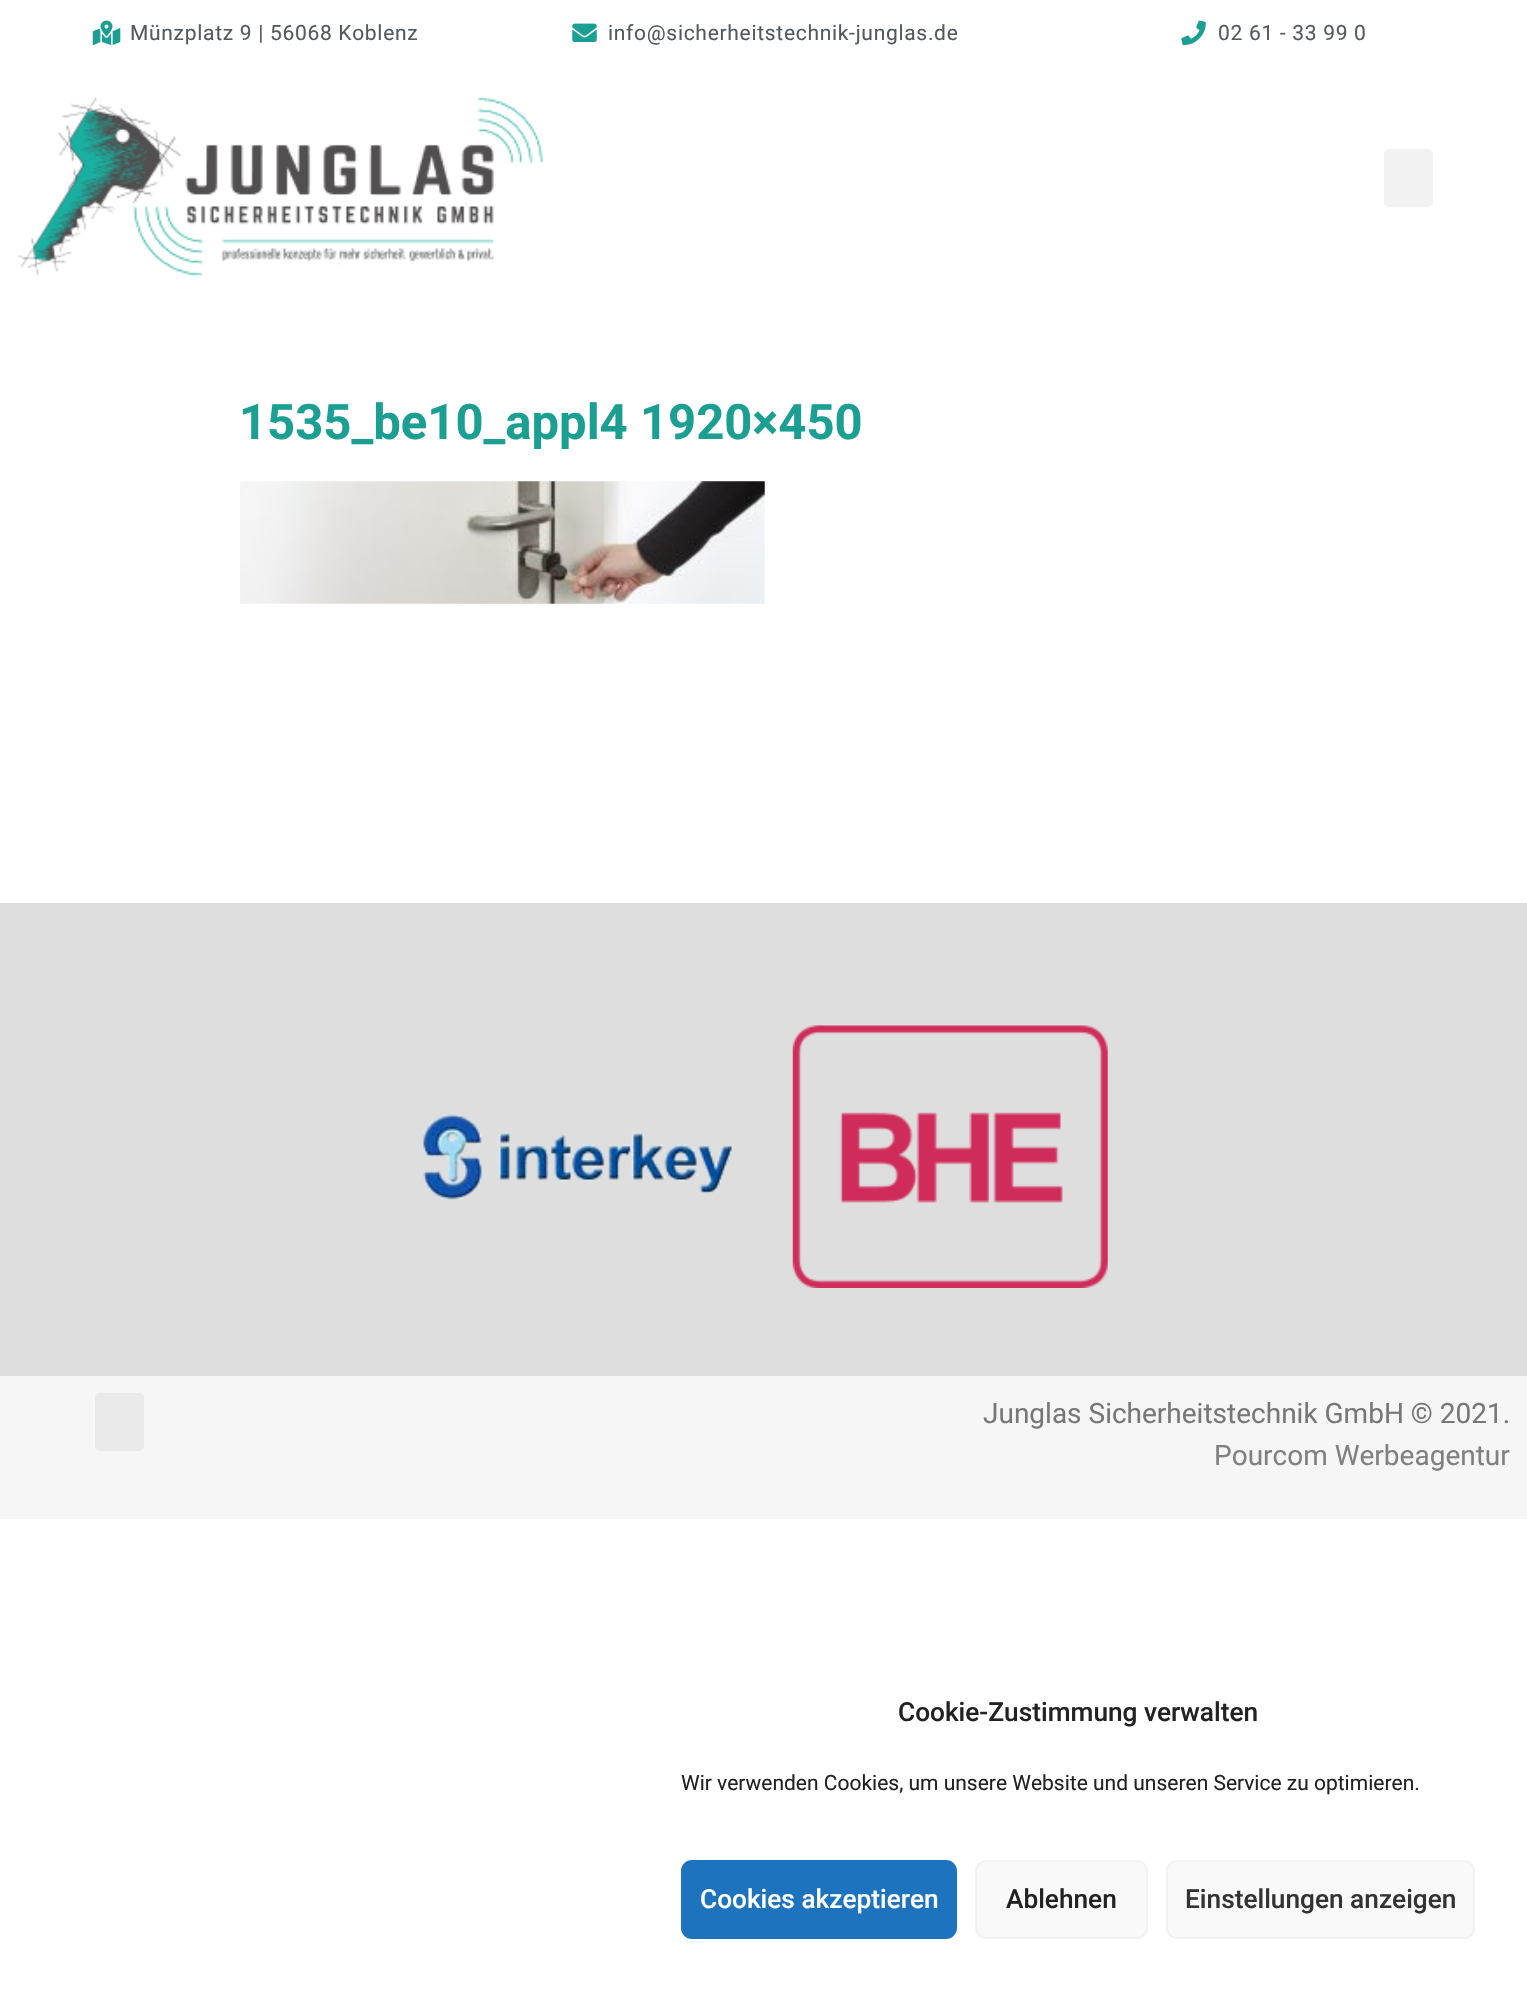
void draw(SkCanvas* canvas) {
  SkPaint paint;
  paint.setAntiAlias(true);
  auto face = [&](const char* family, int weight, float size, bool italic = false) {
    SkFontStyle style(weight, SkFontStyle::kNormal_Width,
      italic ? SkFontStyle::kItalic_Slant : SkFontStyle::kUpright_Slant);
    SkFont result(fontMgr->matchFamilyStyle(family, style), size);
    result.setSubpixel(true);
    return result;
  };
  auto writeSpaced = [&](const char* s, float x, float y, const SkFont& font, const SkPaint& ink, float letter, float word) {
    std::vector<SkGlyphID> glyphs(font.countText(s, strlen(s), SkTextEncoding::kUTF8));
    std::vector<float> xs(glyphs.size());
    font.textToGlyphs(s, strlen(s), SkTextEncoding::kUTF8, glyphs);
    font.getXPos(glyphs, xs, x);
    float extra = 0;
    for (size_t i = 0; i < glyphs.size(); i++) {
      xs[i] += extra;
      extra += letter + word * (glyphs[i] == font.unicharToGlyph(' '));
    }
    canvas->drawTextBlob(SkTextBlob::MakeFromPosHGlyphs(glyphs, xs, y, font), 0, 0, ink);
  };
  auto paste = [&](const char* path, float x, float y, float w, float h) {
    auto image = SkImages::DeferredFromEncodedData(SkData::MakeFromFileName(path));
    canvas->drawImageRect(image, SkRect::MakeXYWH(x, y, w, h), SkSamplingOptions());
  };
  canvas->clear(0xffffffff);
  paste("img/1.png", 92, 20, 29, 25);
  paste("img/2.png", 572, 23, 25, 19);
  paste("img/3.png", 1181, 20, 25, 26);
  paste("img/4.png", 17, 97, 526, 180);
  paint.setColor(0xfff2f2f2);
  canvas->drawRoundRect(SkRect::MakeXYWH(1384, 149, 49, 58), 5, 5, paint);
  paste("img/5.png", 240, 481, 525, 123);
  paint.setColor(0xffdedede);
  canvas->drawRect(SkRect::MakeXYWH(0, 903, 1527, 473), paint);
  paste("img/6.png", 423, 1114, 310, 86);
  paste("img/7.png", 792, 1025, 316, 263);
  paint.setColor(0xfff6f6f6);
  canvas->drawRect(SkRect::MakeXYWH(0, 1376, 1527, 143), paint);
  paint.setColor(0xffeaeaea);
  canvas->drawRoundRect(SkRect::MakeXYWH(95, 1393, 49, 58), 5, 5, paint);
  paint.setColor(0xff1e73be);
  canvas->drawRoundRect(SkRect::MakeXYWH(682, 1861, 274, 77), 10, 10, paint);
  paint.setStroke(true);
  paint.setStrokeWidth(2);
  canvas->drawRoundRect(SkRect::MakeXYWH(682, 1861, 274, 77), 10, 10, paint);
  paint.setStroke(false);
  paint.setColor(0xfff9f9f9);
  canvas->drawRoundRect(SkRect::MakeXYWH(976, 1861, 171, 77), 10, 10, paint);
  paint.setStroke(true);
  paint.setColor(0xfff2f2f2);
  canvas->drawRoundRect(SkRect::MakeXYWH(976, 1861, 171, 77), 10, 10, paint);
  paint.setStroke(false);
  paint.setColor(0xfff9f9f9);
  canvas->drawRoundRect(SkRect::MakeXYWH(1167, 1861, 307, 77), 10, 10, paint);
  paint.setStroke(true);
  paint.setColor(0xfff2f2f2);
  canvas->drawRoundRect(SkRect::MakeXYWH(1167, 1861, 307, 77), 10, 10, paint);
  auto f0 = face("Roboto", 400, 21);
  paint.setStroke(false);
  paint.setColor(0xff54595f);
  {
    const struct { const char* s; float x, y; } items[] = {
      {"Münzplatz 9 | 56068 Koblenz", 130, 40},
      {"info@sicherheitstechnik-junglas.de", 608, 40},
      {"02 61 - 33 99 0", 1218, 40},
    };
    for (auto [s, x, y] : items) {
      writeSpaced(s, x, y, f0, paint, 0.7f, 0);
    }
  }
  auto f1 = face("Roboto", 700, 49);
  paint.setColor(0xff1a9f92);
  canvas->drawString("1535_be10_appl4 1920×450", 239, 439, f1, paint);
  auto f2 = face("Roboto", 400, 28);
  paint.setColor(0xff777777);
  canvas->drawString("Junglas Sicherheitstechnik GmbH © 2021.", 983, 1423, f2, paint);
  paint.setColor(0xff808080);
  canvas->drawString("Pourcom Werbeagentur", 1214, 1465, f2, paint);
  auto f3 = face("Roboto", 500, 26.25f);
  paint.setColor(0xff222222);
  canvas->drawString("Cookie-Zustimmung verwalten", 898, 1721, f3, paint);
  canvas->drawString("Wir verwenden Cookies, um unsere Website und unseren Service zu optimieren.", 681, 1790, f0, paint);
  paint.setColor(0xffffffff);
  canvas->drawString("Cookies akzeptieren", 700, 1908, f3, paint);
  paint.setColor(0xff222222);
  canvas->drawString("Ablehnen", 1006, 1908, f3, paint);
  paint.setColor(0xff333333);
  canvas->drawString("Einstellungen anzeigen", 1185, 1908, f3, paint);
}
